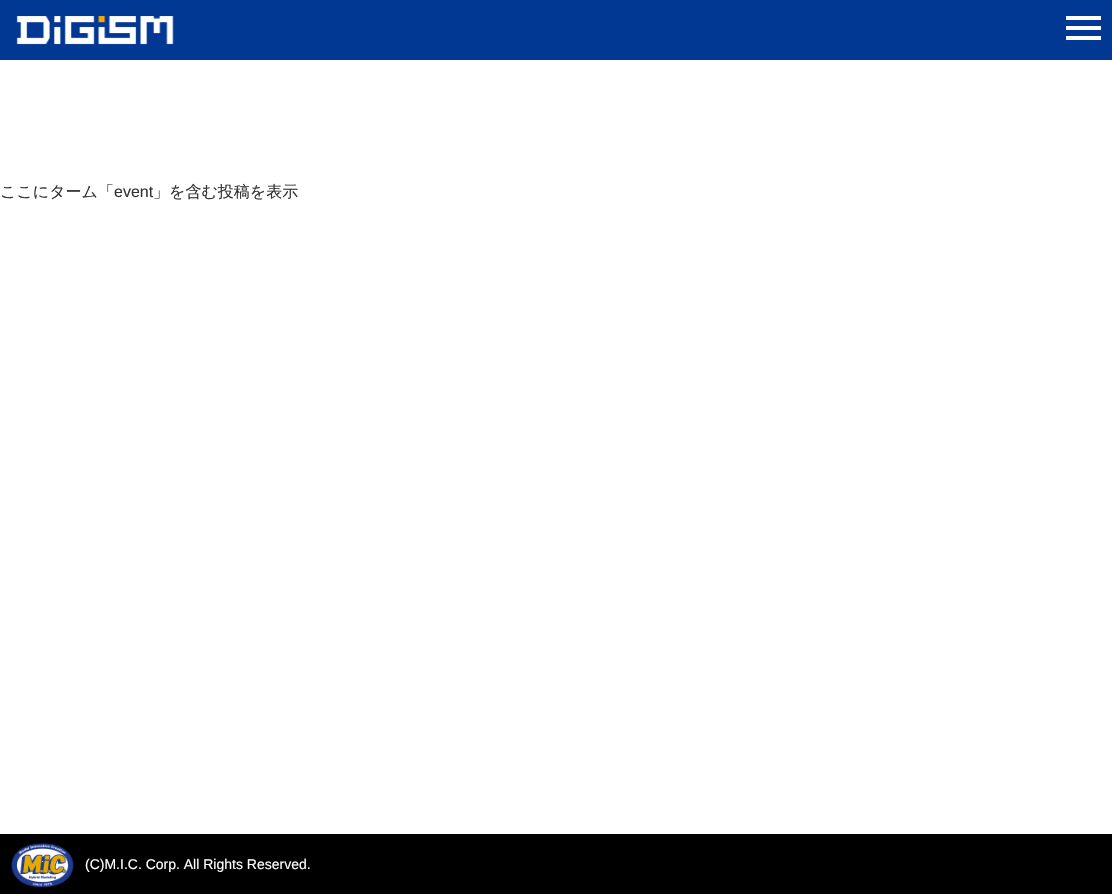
void draw(SkCanvas* canvas) {
  SkPaint paint;
  paint.setAntiAlias(true);
  auto face = [&](const char* family, int weight, float size, bool italic = false) {
    SkFontStyle style(weight, SkFontStyle::kNormal_Width,
      italic ? SkFontStyle::kItalic_Slant : SkFontStyle::kUpright_Slant);
    SkFont result(fontMgr->matchFamilyStyle(family, style), size);
    result.setSubpixel(true);
    return result;
  };
  auto paste = [&](const char* path, float x, float y, float w, float h) {
    auto image = SkImages::DeferredFromEncodedData(SkData::MakeFromFileName(path));
    canvas->drawImageRect(image, SkRect::MakeXYWH(x, y, w, h), SkSamplingOptions());
  };
  canvas->clear(0xffffffff);
  paint.setColor(0xff003893);
  canvas->drawRect(SkRect::MakeXYWH(0, 0, 1112, 60), paint);
  paste("img/1.png", 16, 16, 158, 29);
  {
    const struct { float x, y, w, h; SkColor color; } items[] = {
      {1066, 26, 35, 4, 0xffffffff},
      {1066, 16, 35, 4, 0xffffffff},
      {1066, 36, 35, 4, 0xffffffff},
      {0, 834, 1112, 60, 0xff000000},
    };
    for (auto [x, y, w, h, color] : items) {
      paint.setColor(color);
      canvas->drawRect(SkRect::MakeXYWH(x, y, w, h), paint);
    }
  }
  paste("img/2.png", 11, 843, 63, 44);
  auto f0 = face("WenQuanYi Zen Hei", 500, 16);
  paint.setColor(0xff333333);
  canvas->drawString("ここにターム「", 0, 197, f0, paint);
  auto f1 = face("Liberation Sans", 400, 16);
  canvas->drawString("event", 114, 197, f1, paint);
  canvas->drawString("」を含む投稿を表示", 153, 197, f0, paint);
  auto f2 = face("Liberation Sans", 400, 14);
  paint.setColor(0xffffffff);
  canvas->drawString("(C)M.I.C. Corp. All Rights Reserved.", 85, 869, f2, paint);
}
